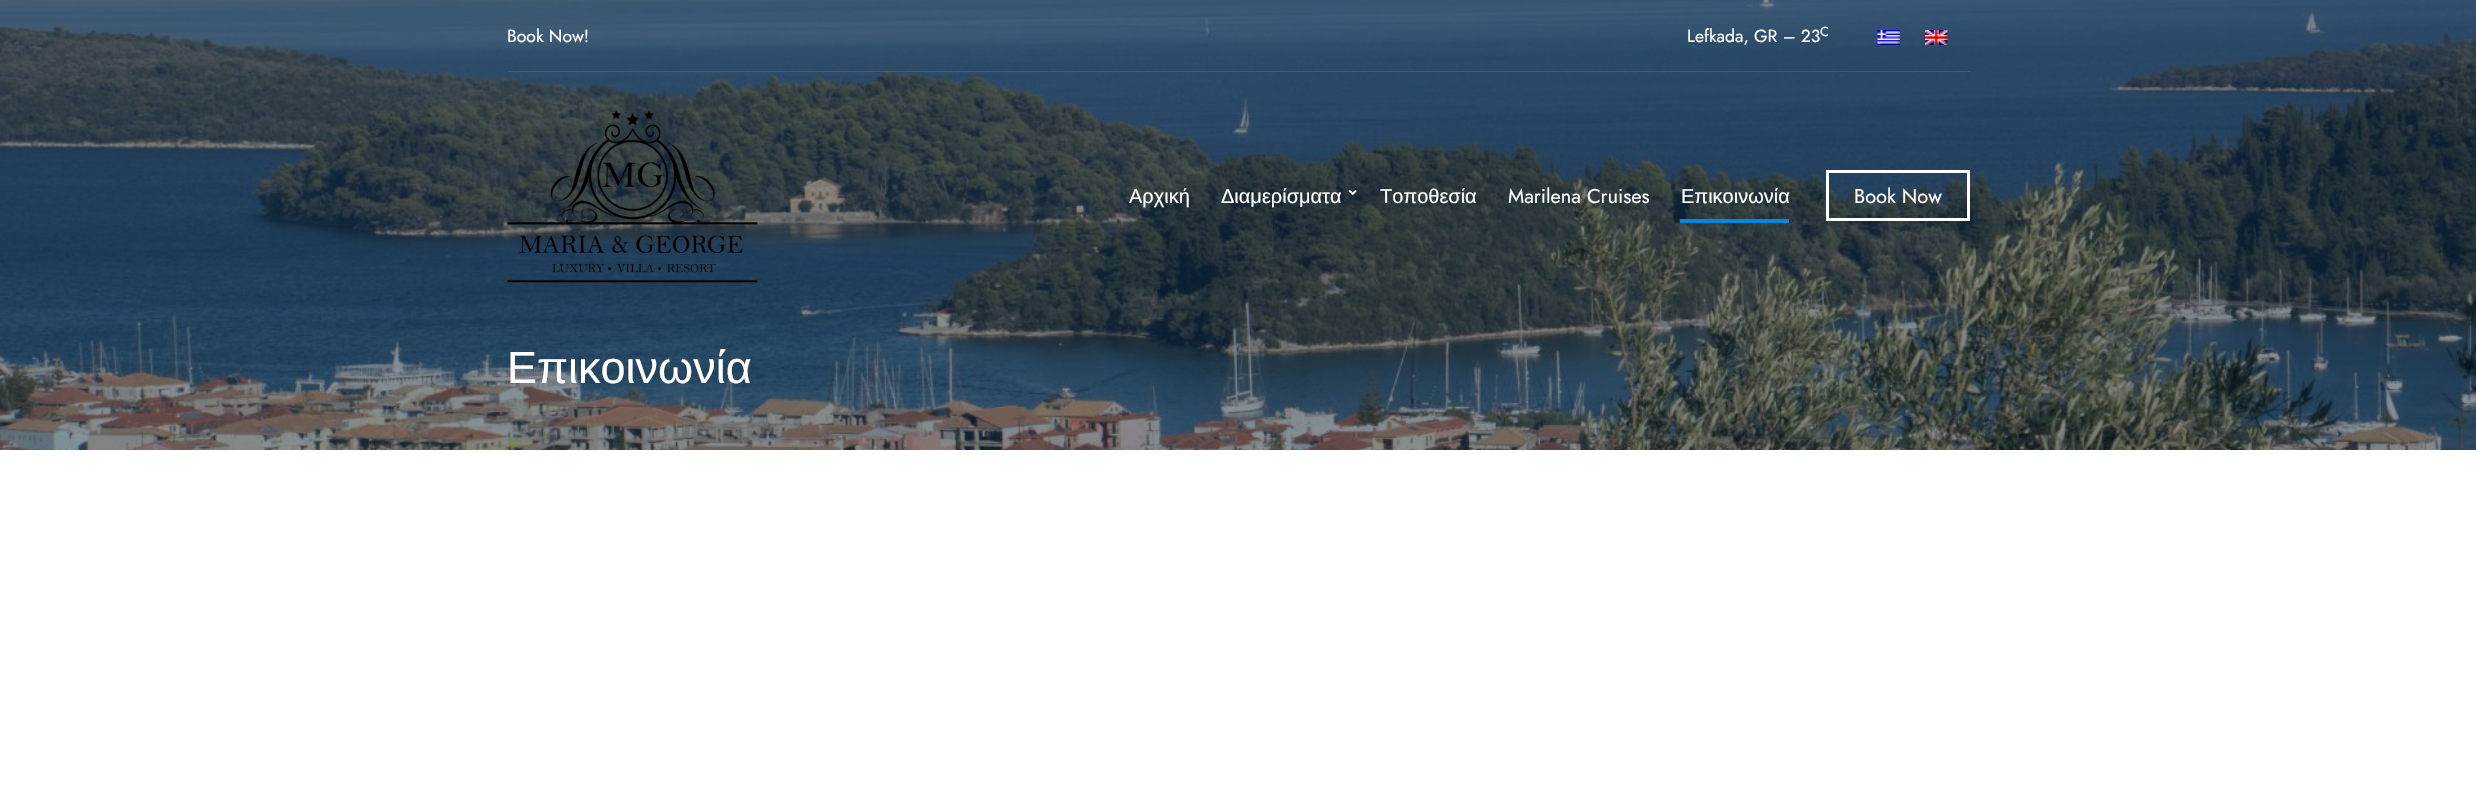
void draw(SkCanvas* canvas) {
  SkPaint paint;
  paint.setAntiAlias(true);
  auto face = [&](const char* family, int weight, float size, bool italic = false) {
    SkFontStyle style(weight, SkFontStyle::kNormal_Width,
      italic ? SkFontStyle::kItalic_Slant : SkFontStyle::kUpright_Slant);
    SkFont result(fontMgr->matchFamilyStyle(family, style), size);
    result.setSubpixel(true);
    return result;
  };
  auto paste = [&](const char* path, float x, float y, float w, float h) {
    auto image = SkImages::DeferredFromEncodedData(SkData::MakeFromFileName(path));
    canvas->drawImageRect(image, SkRect::MakeXYWH(x, y, w, h), SkSamplingOptions());
  };
  canvas->clear(0xffffffff);
  paste("img/5.png", 0, 0, 2476, 450);
  paste("img/1.png", 1877, 30, 23, 15);
  paste("img/2.png", 1925, 30, 23, 15);
  paint.setColor(0x1affffff);
  canvas->drawRect(SkRect::MakeXYWH(508, 71, 1462, 1), paint);
  paste("img/3.png", 507, 110, 251, 173);
  paste("img/4.png", 1348, 190, 9, 5);
  paint.setColor(0xff0188e4);
  canvas->drawRect(SkRect::MakeXYWH(1680, 219, 109, 4), paint);
  paint.setStroke(true);
  paint.setStrokeWidth(3);
  paint.setColor(0xffffffff);
  canvas->drawRect(SkRect::MakeXYWH(1827.5f, 171.5f, 141, 48), paint);
  auto f0 = face("Jost", 400, 17.5f);
  paint.setStroke(false);
  canvas->drawString("Book Now!", 507, 42, f0, paint);
  canvas->drawString("Lefkada, GR – 23", 1687, 42, f0, paint);
  auto f1 = face("Jost", 400, 13);
  canvas->drawString("C", 1820, 36, f1, paint);
  auto f2 = face("Liberation Sans", 400, 20);
  {
    const struct { const char* s; float x, y; } items[] = {
      {"Αρχική", 1129, 203},
      {"Διαμερίσματα", 1221, 203},
      {"Τοποθεσία", 1380, 203},
    };
    for (auto [s, x, y] : items) {
      canvas->drawString(s, x, y, f2, paint);
    }
  }
  auto f3 = face("Jost", 400, 20);
  canvas->drawString("Marilena Cruises", 1508, 203, f3, paint);
  canvas->drawString("Επικοινωνία", 1681, 203, f2, paint);
  canvas->drawString("Book Now", 1854, 203, f3, paint);
  auto f4 = face("Liberation Sans", 400, 45);
  canvas->drawString("Επικοινωνία", 507, 383, f4, paint);
}
